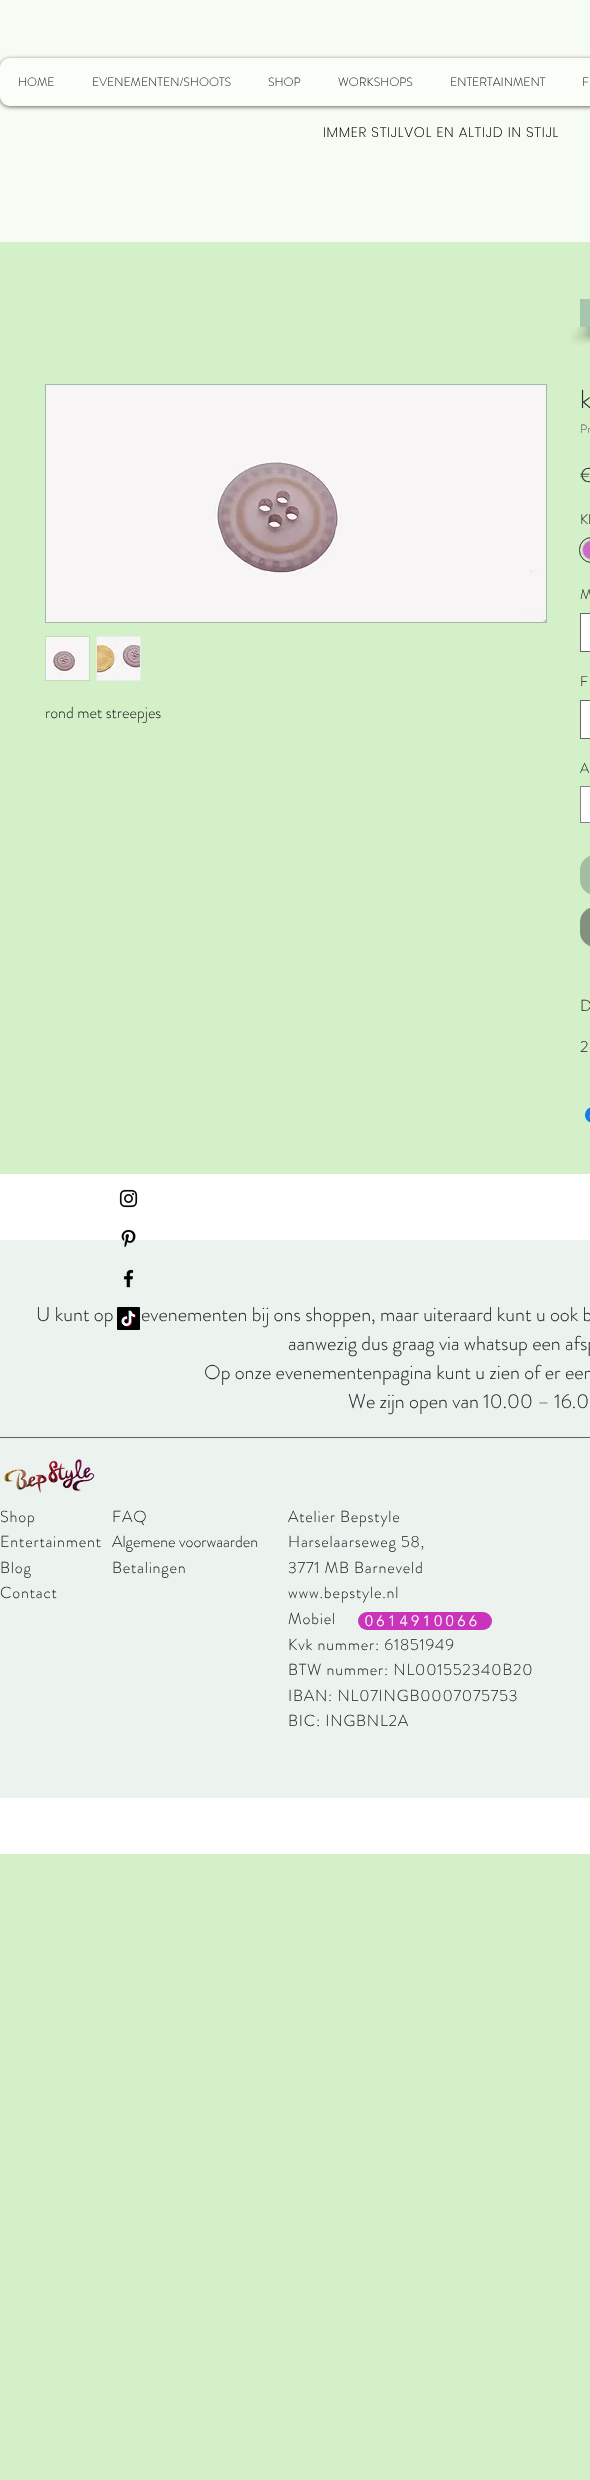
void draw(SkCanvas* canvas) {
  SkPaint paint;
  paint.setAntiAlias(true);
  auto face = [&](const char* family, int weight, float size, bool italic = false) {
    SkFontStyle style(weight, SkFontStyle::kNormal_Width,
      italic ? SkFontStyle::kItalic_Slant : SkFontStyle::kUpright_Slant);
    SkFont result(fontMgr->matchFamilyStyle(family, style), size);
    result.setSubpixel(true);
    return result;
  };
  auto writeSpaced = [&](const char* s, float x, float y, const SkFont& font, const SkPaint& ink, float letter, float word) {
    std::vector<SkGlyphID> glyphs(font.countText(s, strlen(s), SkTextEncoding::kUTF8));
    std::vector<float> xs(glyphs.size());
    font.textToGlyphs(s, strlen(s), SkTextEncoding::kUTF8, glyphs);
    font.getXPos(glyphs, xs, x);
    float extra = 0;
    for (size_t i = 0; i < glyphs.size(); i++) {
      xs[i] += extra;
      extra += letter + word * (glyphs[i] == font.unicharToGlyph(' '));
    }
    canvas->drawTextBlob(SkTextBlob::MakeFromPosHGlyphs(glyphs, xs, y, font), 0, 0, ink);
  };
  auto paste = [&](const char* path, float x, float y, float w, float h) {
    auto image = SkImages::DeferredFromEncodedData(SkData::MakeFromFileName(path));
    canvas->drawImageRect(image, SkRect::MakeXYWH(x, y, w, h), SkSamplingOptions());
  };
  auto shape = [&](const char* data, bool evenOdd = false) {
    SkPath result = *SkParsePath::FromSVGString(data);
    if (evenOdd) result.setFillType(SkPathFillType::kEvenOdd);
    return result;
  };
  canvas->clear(0xffd4f0c9);
  paint.setColor(0xfff6fcf3);
  canvas->drawRect(SkRect::MakeXYWH(0, 0, 590, 242), paint);
  canvas->save();
  canvas->clipPath(shape("M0 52H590V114H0ZM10 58H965C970.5 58 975 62.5 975 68V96C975 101.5 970.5 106 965 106H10C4.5 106 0 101.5 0 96V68C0 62.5 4.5 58 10 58Z", true), true);
  paint.setColor(0x99000000);
  paint.setMaskFilter(SkMaskFilter::MakeBlur(kNormal_SkBlurStyle, 2));
  canvas->drawRoundRect(SkRect::MakeXYWH(0, 59, 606, 48), 10, 10, paint);
  paint.setMaskFilter(nullptr);
  canvas->restore();
  paint.setColor(0x6bffffff);
  canvas->drawRoundRect(SkRect::MakeXYWH(0, 58, 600, 48), 10, 10, paint);
  paint.setColor(0xffa7c6ae);
  canvas->drawRect(SkRect::MakeXYWH(580, 299, 10, 28), paint);
  paste("img/1.png", 571, 327, 19, 18);
  paste("img/2.png", 577, 327, 13, 2);
  paint.setStroke(true);
  paint.setStrokeWidth(1);
  paint.setColor(0xff9dbba8);
  canvas->drawRect(SkRect::MakeXYWH(45.5f, 384.5f, 501, 238), paint);
  paste("img/3.png", 46, 385, 500, 237);
  paint.setColor(0xffc0ddbd);
  canvas->drawRect(SkRect::MakeXYWH(45.5f, 636.5f, 44, 44), paint);
  paste("img/4.png", 46, 637, 43, 43);
  paint.setColor(0xffe7eeea);
  canvas->drawRect(SkRect::MakeXYWH(96.5f, 636.5f, 44, 44), paint);
  paste("img/5.png", 97, 637, 43, 43);
  paint.setColor(0xff2e302f);
  canvas->drawRoundRect(SkRect::MakeXYWH(579.5f, 537.5f, 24, 25), 12.5f, 12.5f, paint);
  paint.setStroke(false);
  paint.setColor(0xffcd69c9);
  canvas->drawRoundRect(SkRect::MakeXYWH(582.5f, 540.5f, 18, 19), 9.5f, 9.5f, paint);
  paint.setStroke(true);
  paint.setColor(0xffc9c9c9);
  canvas->drawRoundRect(SkRect::MakeXYWH(582.5f, 540.5f, 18, 19), 9.5f, 9.5f, paint);
  paint.setStroke(false);
  paint.setColor(0xffffffff);
  canvas->drawRect(SkRect::MakeXYWH(580.5f, 613.5f, 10, 38), paint);
  paint.setStroke(true);
  paint.setColor(0xff666666);
  canvas->drawRect(SkRect::MakeXYWH(580.5f, 613.5f, 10, 38), paint);
  paint.setStroke(false);
  paint.setColor(0xffffffff);
  canvas->drawRect(SkRect::MakeXYWH(580.5f, 700.5f, 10, 38), paint);
  paint.setStroke(true);
  paint.setColor(0xff666666);
  canvas->drawRect(SkRect::MakeXYWH(580.5f, 700.5f, 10, 38), paint);
  paint.setStroke(false);
  paint.setColor(0xffffffff);
  canvas->drawRect(SkRect::MakeXYWH(580.5f, 786.5f, 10, 36), paint);
  paint.setStroke(true);
  paint.setColor(0xff828382);
  canvas->drawRect(SkRect::MakeXYWH(580.5f, 786.5f, 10, 36), paint);
  paint.setStroke(false);
  paint.setColor(0xffa4bea2);
  canvas->drawRoundRect(SkRect::MakeXYWH(580, 855, 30, 40), 20, 20, paint);
  paint.setColor(0xff83927e);
  canvas->drawRoundRect(SkRect::MakeXYWH(580, 907, 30, 40), 20, 20, paint);
  paste("img/6.png", 585, 1107, 5, 16);
  paint.setColor(0xffffffff);
  canvas->drawRect(SkRect::MakeXYWH(0, 1174, 590, 680), paint);
  paste("img/7.png", 119, 1189, 19, 19);
  paint.setColor(0xffecf3ef);
  canvas->drawRect(SkRect::MakeXYWH(0, 1240, 590, 558), paint);
  paste("img/8.png", 121, 1229, 15, 19);
  paste("img/9.png", 123, 1269, 11, 19);
  paste("img/10.png", 117, 1307, 23, 23);
  paint.setColor(0xff5c5f5e);
  canvas->drawRect(SkRect::MakeXYWH(0, 1437, 590, 1), paint);
  paste("img/11.png", 4, 1459, 91, 34);
  paint.setColor(0xffc934ba);
  canvas->drawRoundRect(SkRect::MakeXYWH(358, 1612, 134, 18), 9, 9, paint);
  auto f0 = face("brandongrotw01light", 300, 12);
  paint.setColor(0xff2e302f);
  {
    const struct { const char* s; float x, y; } items[] = {
      {"HOME", 18, 86},
      {"EVENEMENTEN/SHOOTS", 92, 86},
      {"SHOP", 268, 86},
      {"WORKSHOPS", 338, 86},
      {"ENTERTAINMENT", 450, 86},
      {"F", 582, 86},
    };
    for (auto [s, x, y] : items) {
      canvas->drawString(s, x, y, f0, paint);
    }
  }
  auto f1 = face("Poppins", 200, 14);
  paint.setColor(0xff000000);
  writeSpaced("IMMER STIJLVOL EN ALTIJD IN STIJL", 323, 137, f1, paint, 0.7f, 0);
  auto f2 = face("brandongrotw01light", 300, 16);
  paint.setColor(0xff2e302f);
  canvas->drawString("rond met streepjes", 45, 718, f2, paint);
  auto f3 = face("brandongrotw01light", 300, 26);
  canvas->drawString("k", 580, 408, f3, paint);
  paint.setColor(0xff5c5f5e);
  canvas->drawString("Pr", 580, 433, f0, paint);
  auto f4 = face("brandongrotw01light", 300, 20);
  paint.setColor(0xff2e302f);
  canvas->drawString("€", 580, 482, f4, paint);
  auto f5 = face("brandongrotw01light", 300, 14);
  {
    const struct { const char* s; float x, y; } items[] = {
      {"Kl", 580, 524},
      {"M", 580, 599},
      {"F", 580, 686},
      {"A", 580, 773},
    };
    for (auto [s, x, y] : items) {
      canvas->drawString(s, x, y, f5, paint);
    }
  }
  canvas->drawString("D", 580, 1011, f2, paint);
  canvas->drawString("2", 580, 1052, f2, paint);
  {
    const struct { const char* s; float x, y; } items[] = {
      {"U kunt op", 36, 1321},
      {"evenementen bij ons shoppen, maar uiteraard kunt u ook b", 141, 1321},
      {"aanwezig dus graag via whatsup een afsp", 288, 1350},
      {"Op onze evenementenpagina kunt u zien of er een", 204, 1379},
      {"We zijn open van 10.00 – 16.0", 348, 1408},
    };
    for (auto [s, x, y] : items) {
      canvas->drawString(s, x, y, f4, paint);
    }
  }
  {
    const struct { const char* s; float x, y; } items[] = {
      {"Shop", 0, 1522},
      {"Entertainment", 0, 1547},
      {"Blog", 0, 1573},
      {"Contact", 0, 1598},
      {"FAQ", 112, 1522},
    };
    for (auto [s, x, y] : items) {
      writeSpaced(s, x, y, f2, paint, 0.8f, 0);
    }
  }
  canvas->drawString("Algemene voorwaarden", 112, 1547, f2, paint);
  {
    const struct { const char* s; float x, y; } items[] = {
      {"Betalingen", 112, 1573},
      {"Atelier Bepstyle", 288, 1522},
      {"Harselaarseweg 58,", 288, 1547},
      {"3771 MB Barneveld", 288, 1573},
      {"www.bepstyle.nl", 288, 1598},
      {"Mobiel", 288, 1624},
      {"Kvk nummer: 61851949", 288, 1650},
      {"BTW nummer: NL001552340B20", 288, 1675},
      {"IBAN: NL07INGB0007075753", 288, 1701},
      {"BIC: INGBNL2A", 288, 1726},
    };
    for (auto [s, x, y] : items) {
      writeSpaced(s, x, y, f2, paint, 0.8f, 0);
    }
  }
  auto f6 = face("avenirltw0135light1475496", 300, 15);
  paint.setColor(0xffffffff);
  writeSpaced("0614910066", 365, 1626, f6, paint, 3.75f, 0);
}
